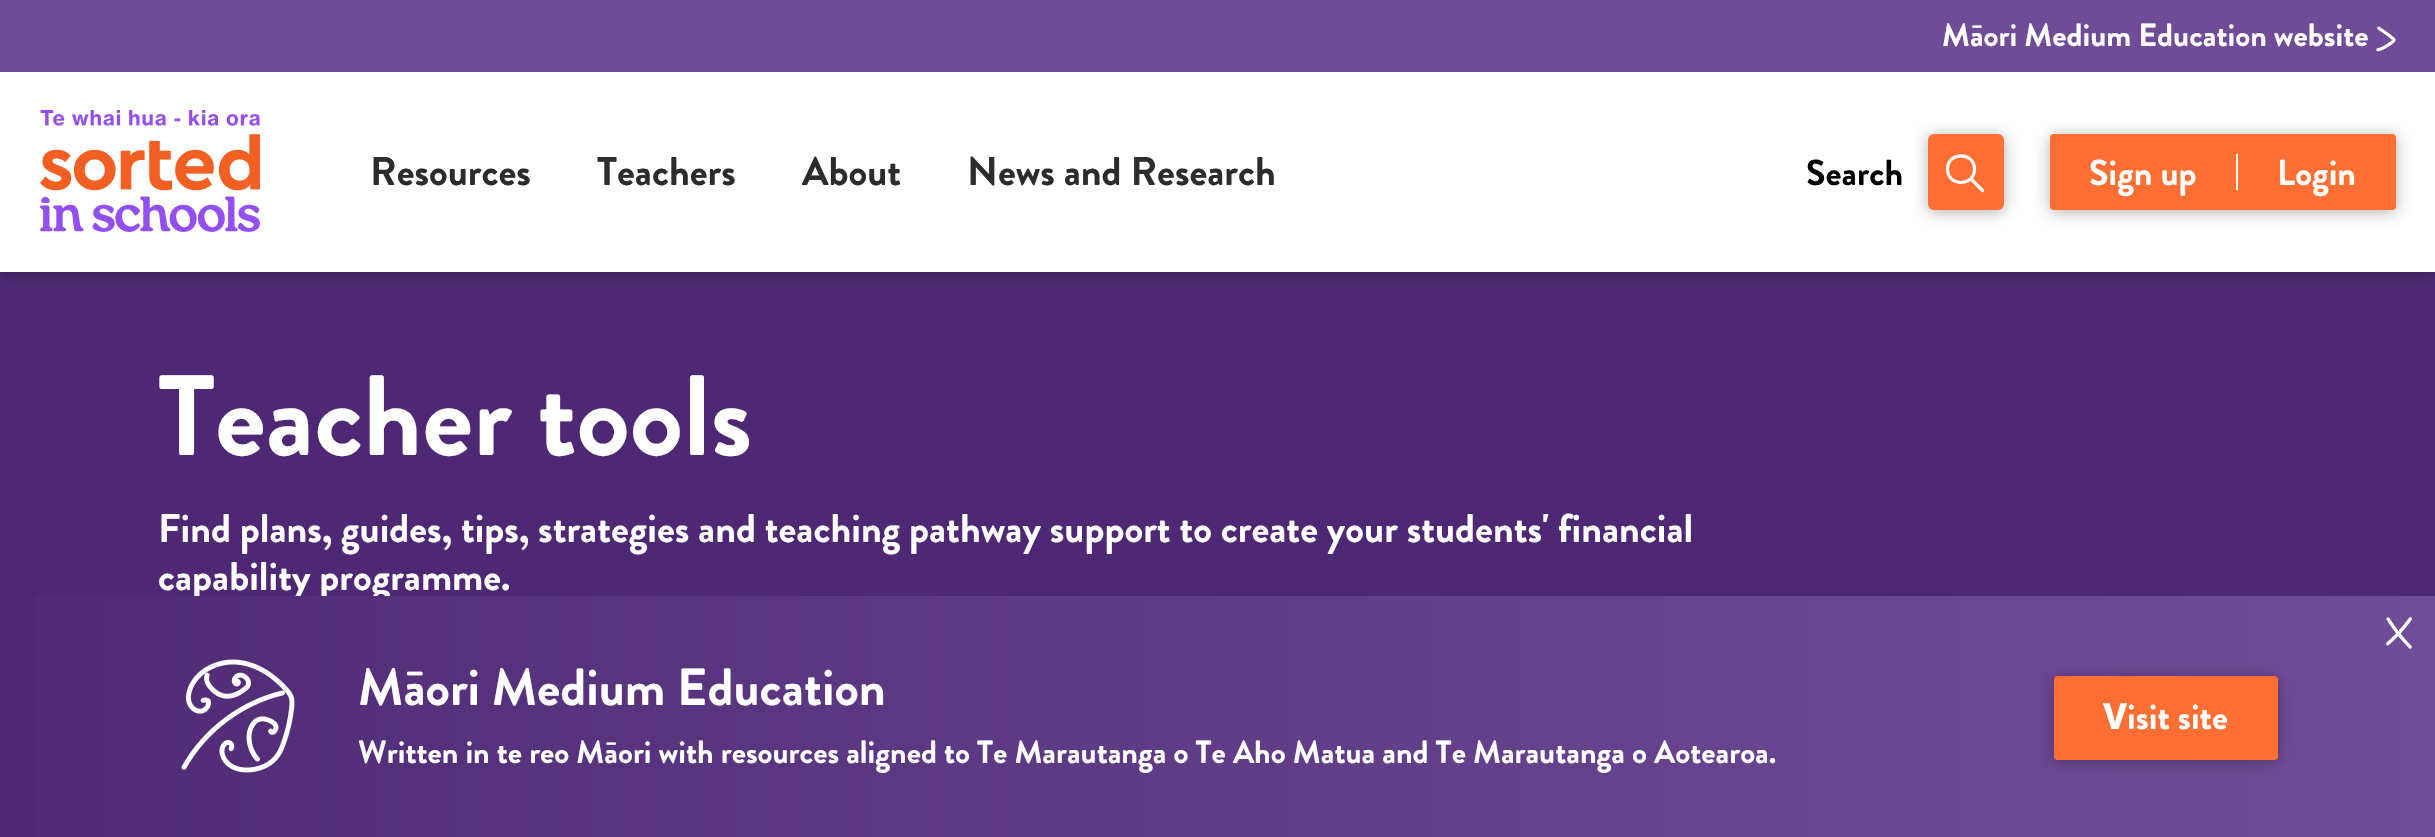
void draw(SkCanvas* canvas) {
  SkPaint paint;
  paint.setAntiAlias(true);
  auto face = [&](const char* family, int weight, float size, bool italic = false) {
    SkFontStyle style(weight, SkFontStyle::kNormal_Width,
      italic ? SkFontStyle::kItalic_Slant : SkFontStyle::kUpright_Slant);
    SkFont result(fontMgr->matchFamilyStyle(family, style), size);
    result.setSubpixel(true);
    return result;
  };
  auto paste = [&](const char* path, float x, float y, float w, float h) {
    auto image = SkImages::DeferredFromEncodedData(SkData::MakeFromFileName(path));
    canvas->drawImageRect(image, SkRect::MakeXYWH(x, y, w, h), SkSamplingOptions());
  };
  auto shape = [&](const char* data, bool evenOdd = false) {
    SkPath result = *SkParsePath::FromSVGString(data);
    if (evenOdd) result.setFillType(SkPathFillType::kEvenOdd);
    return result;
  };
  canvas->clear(0xff4f2875);
  paint.setColor(0x4d000000);
  paint.setMaskFilter(SkMaskFilter::MakeBlur(kNormal_SkBlurStyle, 8));
  canvas->drawRect(SkRect::MakeXYWH(0, 2, 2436, 272), paint);
  paint.setMaskFilter(nullptr);
  paint.setColor(0xffffffff);
  canvas->drawRect(SkRect::MakeXYWH(0, 72, 2435, 200), paint);
  paint.setColor(0xff704c98);
  canvas->drawRect(SkRect::MakeXYWH(0, 0, 2435, 72), paint);
  paste("img/1.png", 2376, 26, 20, 26);
  paste("img/2.png", 40, 110, 220, 122);
  paint.setColor(0x4d000000);
  paint.setMaskFilter(SkMaskFilter::MakeBlur(kNormal_SkBlurStyle, 8));
  canvas->drawRoundRect(SkRect::MakeXYWH(1928, 136, 76, 76), 6, 6, paint);
  paint.setMaskFilter(nullptr);
  paint.setColor(0xffff6e32);
  canvas->drawRoundRect(SkRect::MakeXYWH(1928, 134, 76, 76), 6, 6, paint);
  paint.setStroke(true);
  paint.setStrokeWidth(3.2f);
  paint.setStrokeCap(SkPaint::kRound_Cap);
  paint.setStrokeJoin(SkPaint::kRound_Join);
  paint.setColor(0xffffffff);
  canvas->drawPath(shape("M1974.5 169C1974.5 187 1947.5 187 1947.5 169C1947.5 151.5 1974.5 151.5 1974.5 169ZM1971.5 179.5L1982.5 190.5"), paint);
  paint.setStroke(false);
  paint.setColor(0x4d000000);
  paint.setMaskFilter(SkMaskFilter::MakeBlur(kNormal_SkBlurStyle, 8));
  canvas->drawRoundRect(SkRect::MakeXYWH(2050, 136, 346, 76), 4, 4, paint);
  paint.setMaskFilter(nullptr);
  paint.setColor(0xffff6e32);
  canvas->drawRoundRect(SkRect::MakeXYWH(2050, 134, 346, 76), 4, 4, paint);
  paint.setColor(0xffffffff);
  canvas->drawRect(SkRect::MakeXYWH(2236, 154, 2, 36), paint);
  auto f0 = face("Brandon Grotesque", 700, 32);
  canvas->drawString("Māori Medium Education website", 1942, 46, f0, paint);
  auto f1 = face("Brandon Grotesque", 700, 40);
  paint.setColor(0xff2c2c2c);
  {
    const struct { const char* s; float x, y; } items[] = {
      {"Resources", 370, 185},
      {"Teachers", 597, 185},
      {"About", 802, 185},
      {"News and Research", 967, 185},
    };
    for (auto [s, x, y] : items) {
      canvas->drawString(s, x, y, f1, paint);
    }
  }
  auto f2 = face("Brandon Grotesque", 700, 36);
  paint.setColor(0xff000000);
  canvas->drawString("Search", 1806, 185, f2, paint);
  paint.setColor(0xffffffff);
  canvas->drawString("Sign up", 2089, 185, f2, paint);
  canvas->drawString("Login", 2277, 185, f2, paint);
  auto f3 = face("Brandon Grotesque", 700, 114);
  canvas->drawString("Teacher tools", 158, 455, f3, paint);
  canvas->drawString("Find plans, guides, tips, strategies and teaching pathway support to create your students' financial", 158, 542, f1, paint);
  canvas->drawString("capability programme.", 158, 590, f1, paint);
  {
    const SkColor colors[] = {0xff714d99, 0xff502a75};
    const float stops[] = {0, 1};
    const SkPoint ends[] = {{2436, 717}, {0, 717}};
    paint.setShader(SkGradientShader::MakeLinear(ends, colors, stops, 2, SkTileMode::kClamp));
    paint.setAlpha(255);
  }
  canvas->drawRect(SkRect::MakeXYWH(35, 596, 2400, 241), paint);
  paste("img/3.png", 2386, 617, 26, 32);
  paste("img/4.png", 181, 659, 114, 114);
  auto f4 = face("Brandon Grotesque", 700, 52);
  paint.setShader(nullptr);
  paint.setColor(0xffffffff);
  canvas->drawString("Māori Medium Education", 358, 705, f4, paint);
  canvas->drawString("Written in te reo Māori with resources aligned to Te Marautanga o Te Aho Matua and Te Marautanga o Aotearoa.", 358, 763, f0, paint);
  paint.setColor(0x4d000000);
  paint.setMaskFilter(SkMaskFilter::MakeBlur(kNormal_SkBlurStyle, 8));
  canvas->drawRoundRect(SkRect::MakeXYWH(2054, 678, 224, 84), 4, 4, paint);
  paint.setMaskFilter(nullptr);
  paint.setColor(0xffff6e32);
  canvas->drawRoundRect(SkRect::MakeXYWH(2054, 676, 224, 84), 4, 4, paint);
  auto f5 = face("Noto Sans", 800, 36);
  paint.setColor(0xffffffff);
  canvas->drawString("V", 2103, 729, f5, paint);
  canvas->drawString("isit site", 2127, 729, f2, paint);
}
